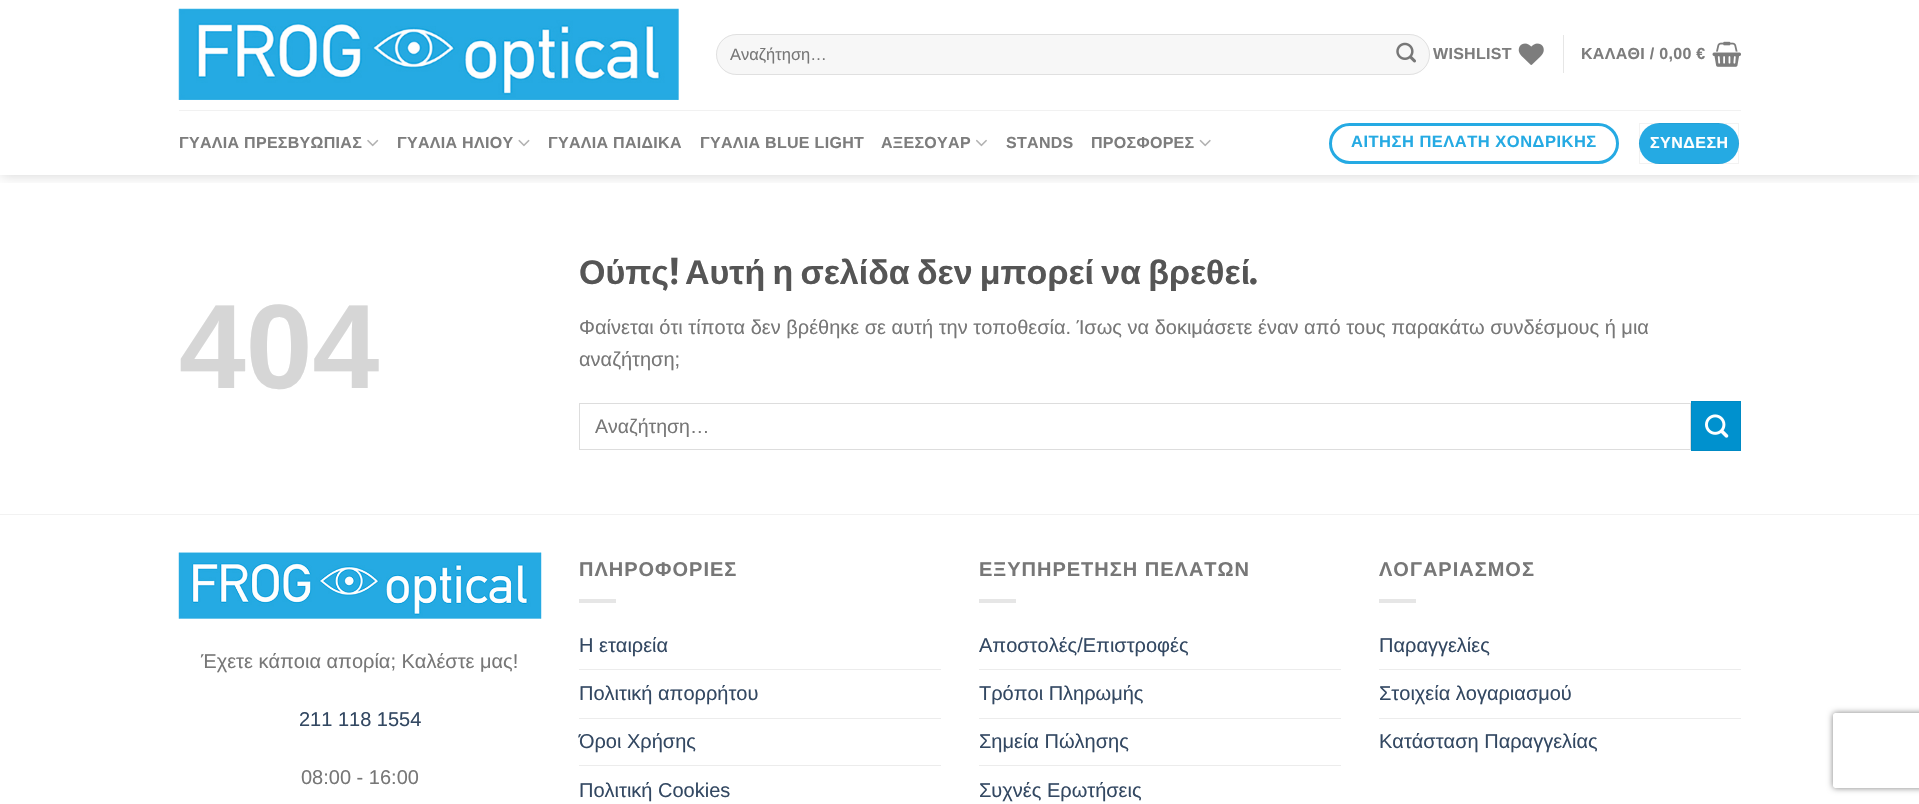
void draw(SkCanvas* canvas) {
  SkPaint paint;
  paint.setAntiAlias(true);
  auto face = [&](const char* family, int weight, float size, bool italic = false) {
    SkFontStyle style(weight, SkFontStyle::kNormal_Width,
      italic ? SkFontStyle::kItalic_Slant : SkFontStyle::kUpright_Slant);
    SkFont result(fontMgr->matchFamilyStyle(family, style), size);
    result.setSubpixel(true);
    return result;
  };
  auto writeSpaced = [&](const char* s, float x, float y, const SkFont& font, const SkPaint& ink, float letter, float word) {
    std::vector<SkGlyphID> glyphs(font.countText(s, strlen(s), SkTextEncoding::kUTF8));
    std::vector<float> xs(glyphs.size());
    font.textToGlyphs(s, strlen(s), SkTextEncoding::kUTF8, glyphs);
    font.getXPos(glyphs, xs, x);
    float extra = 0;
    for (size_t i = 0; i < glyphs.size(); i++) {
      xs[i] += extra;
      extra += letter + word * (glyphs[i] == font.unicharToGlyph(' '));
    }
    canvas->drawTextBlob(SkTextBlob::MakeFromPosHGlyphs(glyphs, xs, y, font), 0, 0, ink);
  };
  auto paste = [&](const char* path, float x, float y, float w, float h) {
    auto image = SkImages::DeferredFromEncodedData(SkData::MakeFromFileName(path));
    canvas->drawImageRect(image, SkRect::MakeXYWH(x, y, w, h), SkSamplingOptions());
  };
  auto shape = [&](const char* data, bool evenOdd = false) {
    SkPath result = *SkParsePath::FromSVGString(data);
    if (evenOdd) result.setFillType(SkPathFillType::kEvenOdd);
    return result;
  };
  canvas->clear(0xffffffff);
  canvas->save();
  canvas->clipRect(SkRect::MakeXYWH(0, 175, 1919, 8));
  paint.setColor(0x26000000);
  paint.setMaskFilter(SkMaskFilter::MakeBlur(kNormal_SkBlurStyle, 6));
  canvas->drawRect(SkRect::MakeXYWH(1, -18, 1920, 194), paint);
  paint.setMaskFilter(nullptr);
  canvas->restore();
  paste("img/1.png", 178, 8, 501, 92);
  paint.setColor(0xfff7f7f7);
  canvas->drawRoundRect(SkRect::MakeXYWH(716, 34, 714, 41), 20.5f, 20.5f, paint);
  paint.setStroke(true);
  paint.setStrokeWidth(1);
  paint.setColor(0x17000000);
  canvas->drawRoundRect(SkRect::MakeXYWH(716.5f, 34.5f, 713, 40), 20, 20, paint);
  paste("img/2.png", 1396, 42, 20, 21);
  paste("img/3.png", 1518, 43, 26, 22);
  paint.setStroke(false);
  paint.setColor(0xffe6e6e6);
  canvas->drawRect(SkRect::MakeXYWH(1563, 35, 1, 38), paint);
  paste("img/4.png", 1712, 41, 29, 26);
  paint.setColor(0xfff1f1f1);
  canvas->drawRect(SkRect::MakeXYWH(179, 110, 1562, 1), paint);
  paste("img/5.png", 367, 139, 12, 8);
  paste("img/6.png", 518, 139, 12, 8);
  paste("img/7.png", 976, 139, 11, 8);
  paste("img/8.png", 1199, 139, 12, 8);
  paint.setStroke(true);
  paint.setStrokeWidth(3);
  paint.setColor(0xff25aae3);
  canvas->drawRoundRect(SkRect::MakeXYWH(1330.5f, 124.5f, 287, 38), 19, 19, paint);
  paint.setStroke(false);
  canvas->drawRoundRect(SkRect::MakeXYWH(1639, 123, 100, 41), 20.5f, 20.5f, paint);
  paint.setStroke(true);
  paint.setStrokeWidth(1);
  paint.setColor(0x0d000000);
  canvas->drawRect(SkRect::MakeXYWH(1639.5f, 123.5f, 99, 40), paint);
  paint.setColor(0xffdddddd);
  canvas->drawRect(SkRect::MakeXYWH(579.5f, 403.5f, 1111, 46), paint);
  paint.setStroke(false);
  paint.setColor(0xff0091ce);
  canvas->drawRect(SkRect::MakeXYWH(1691.5f, 401.5f, 49, 49), paint);
  paint.setStroke(true);
  paint.setColor(0xff008ac4);
  canvas->drawRect(SkRect::MakeXYWH(1691.5f, 401.5f, 49, 49), paint);
  paste("img/9.png", 1705, 414, 24, 24);
  paint.setStroke(false);
  paint.setColor(0xfff2f2f2);
  canvas->drawRect(SkRect::MakeXYWH(0, 514, 1919, 1), paint);
  paste("img/10.png", 178, 552, 364, 67);
  {
    const struct { float x, y, w, h; SkColor color; } items[] = {
      {579, 599, 37, 4, 0xffe6e6e6},
      {579, 669, 362, 1, 0xffececec},
      {579, 718, 362, 1, 0xffececec},
      {579, 765, 362, 1, 0xffececec},
      {979, 599, 37, 4, 0xffe6e6e6},
      {979, 669, 362, 1, 0xffececec},
      {979, 718, 362, 1, 0xffececec},
      {979, 765, 362, 1, 0xffececec},
      {1379, 599, 37, 4, 0xffe6e6e6},
      {1379, 669, 362, 1, 0xffececec},
      {1379, 718, 362, 1, 0xffececec},
    };
    for (auto [x, y, w, h, color] : items) {
      paint.setColor(color);
      canvas->drawRect(SkRect::MakeXYWH(x, y, w, h), paint);
    }
  }
  canvas->save();
  canvas->clipPath(shape("M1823 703H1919V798H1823ZM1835.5 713H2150.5C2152 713 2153 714 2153 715.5V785.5C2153 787 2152 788 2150.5 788H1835.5C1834 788 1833 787 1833 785.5V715.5C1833 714 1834 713 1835.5 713Z", true), true);
  paint.setColor(0xff808080);
  paint.setMaskFilter(SkMaskFilter::MakeBlur(kNormal_SkBlurStyle, 3));
  canvas->drawRoundRect(SkRect::MakeXYWH(1833, 713, 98, 75), 2.5f, 2.5f, paint);
  paint.setMaskFilter(nullptr);
  canvas->restore();
  auto f0 = face("Liberation Sans", 400, 16.5f);
  paint.setColor(0xff777777);
  canvas->drawString("Αναζήτηση…", 730, 60, f0, paint);
  auto f1 = face("Liberation Sans", 700, 16);
  paint.setColor(0xff7d7d7d);
  {
    const struct { const char* s; float x, y; } items[] = {
      {"WISHLIST", 1433, 59},
      {"ΚΑΛΑΘΙ / 0,00 €", 1581, 59},
      {"ΓΥΑΛΙΑ ΠΡΕΣΒΥΩΠΙΑΣ", 179, 148},
      {"ΓΥΑΛΙΑ ΗΛΙΟΥ", 397, 148},
      {"ΓΥΑΛΙΑ ΠΑΙΔΙΚΑ", 548, 148},
      {"ΓΥΑΛΙΑ BLUE LIGHT", 700, 148},
      {"ΑΞΕΣΟΥΑΡ", 881, 148},
      {"STANDS", 1006, 148},
      {"ΠΡΟΣΦΟΡΕΣ", 1091, 148},
    };
    for (auto [s, x, y] : items) {
      writeSpaced(s, x, y, f1, paint, 0.3f, 0);
    }
  }
  auto f2 = face("Liberation Sans", 700, 16.5f);
  paint.setColor(0xff25aae3);
  writeSpaced("ΑΙΤΗΣΗ ΠΕΛΑΤΗ ΧΟΝΔΡΙΚΗΣ", 1351, 147, f2, paint, 0.5f, 0);
  paint.setColor(0xffffffff);
  writeSpaced("ΣΥΝΔΕΣΗ", 1650, 148, f1, paint, 0.5f, 0);
  auto f3 = face("Liberation Sans", 700, 120);
  paint.setColor(0xffd6d6d6);
  canvas->drawString("404", 179, 388, f3, paint);
  auto f4 = face("Liberation Sans", 700, 34);
  paint.setColor(0xff555555);
  canvas->drawString("Ούπς", 579, 284, f4, paint);
  auto f5 = face("Arvo", 700, 34);
  canvas->drawString("!", 669, 284, f5, paint);
  writeSpaced("Αυτή η σελίδα δεν μπορεί να βρεθεί", 685, 284, f4, paint, 0, -2.25f);
  canvas->drawString(".", 1249, 284, f5, paint);
  auto f6 = face("Liberation Sans", 400, 20);
  paint.setColor(0xff777777);
  canvas->drawString("Φαίνεται ότι τίποτα δεν βρέθηκε σε αυτή την τοποθεσία. Ίσως να δοκιμάσετε έναν από τους παρακάτω συνδέσμους ή μια", 579, 334, f6, paint);
  canvas->drawString("αναζήτηση;", 579, 366, f6, paint);
  auto f7 = face("Liberation Sans", 400, 19.5f);
  canvas->drawString("Αναζήτηση…", 595, 433, f7, paint);
  canvas->drawString("Έχετε κάποια απορία; Καλέστε μας!", 201, 668, f6, paint);
  paint.setColor(0xff334862);
  canvas->drawString("211 118 1554", 299, 726, f6, paint);
  paint.setColor(0xff777777);
  canvas->drawString("08:00 - 16:00", 301, 784, f6, paint);
  auto f8 = face("Liberation Sans", 700, 20);
  writeSpaced("ΠΛΗΡΟΦΟΡΙΕΣ", 579, 576, f8, paint, 1, 0);
  paint.setColor(0xff334862);
  {
    const struct { const char* s; float x, y; } items[] = {
      {"Η εταιρεία", 579, 652},
      {"Πολιτική απορρήτου", 579, 700},
      {"Όροι Χρήσης", 579, 748},
      {"Πολιτική Cookies", 579, 797},
    };
    for (auto [s, x, y] : items) {
      canvas->drawString(s, x, y, f6, paint);
    }
  }
  paint.setColor(0xff777777);
  writeSpaced("ΕΞΥΠΗΡΕΤΗΣΗ ΠΕΛΑΤΩΝ", 979, 576, f8, paint, 1, 0);
  paint.setColor(0xff334862);
  {
    const struct { const char* s; float x, y; } items[] = {
      {"Αποστολές/Επιστροφές", 979, 652},
      {"Τρόποι Πληρωμής", 979, 700},
      {"Σημεία Πώλησης", 979, 748},
      {"Συχνές Ερωτήσεις", 979, 797},
    };
    for (auto [s, x, y] : items) {
      canvas->drawString(s, x, y, f6, paint);
    }
  }
  paint.setColor(0xff777777);
  writeSpaced("ΛΟΓΑΡΙΑΣΜΟΣ", 1379, 576, f8, paint, 1, 0);
  paint.setColor(0xff334862);
  {
    const struct { const char* s; float x, y; } items[] = {
      {"Παραγγελίες", 1379, 652},
      {"Στοιχεία λογαριασμού", 1379, 700},
      {"Κατάσταση Παραγγελίας", 1379, 748},
    };
    for (auto [s, x, y] : items) {
      canvas->drawString(s, x, y, f6, paint);
    }
  }
}
